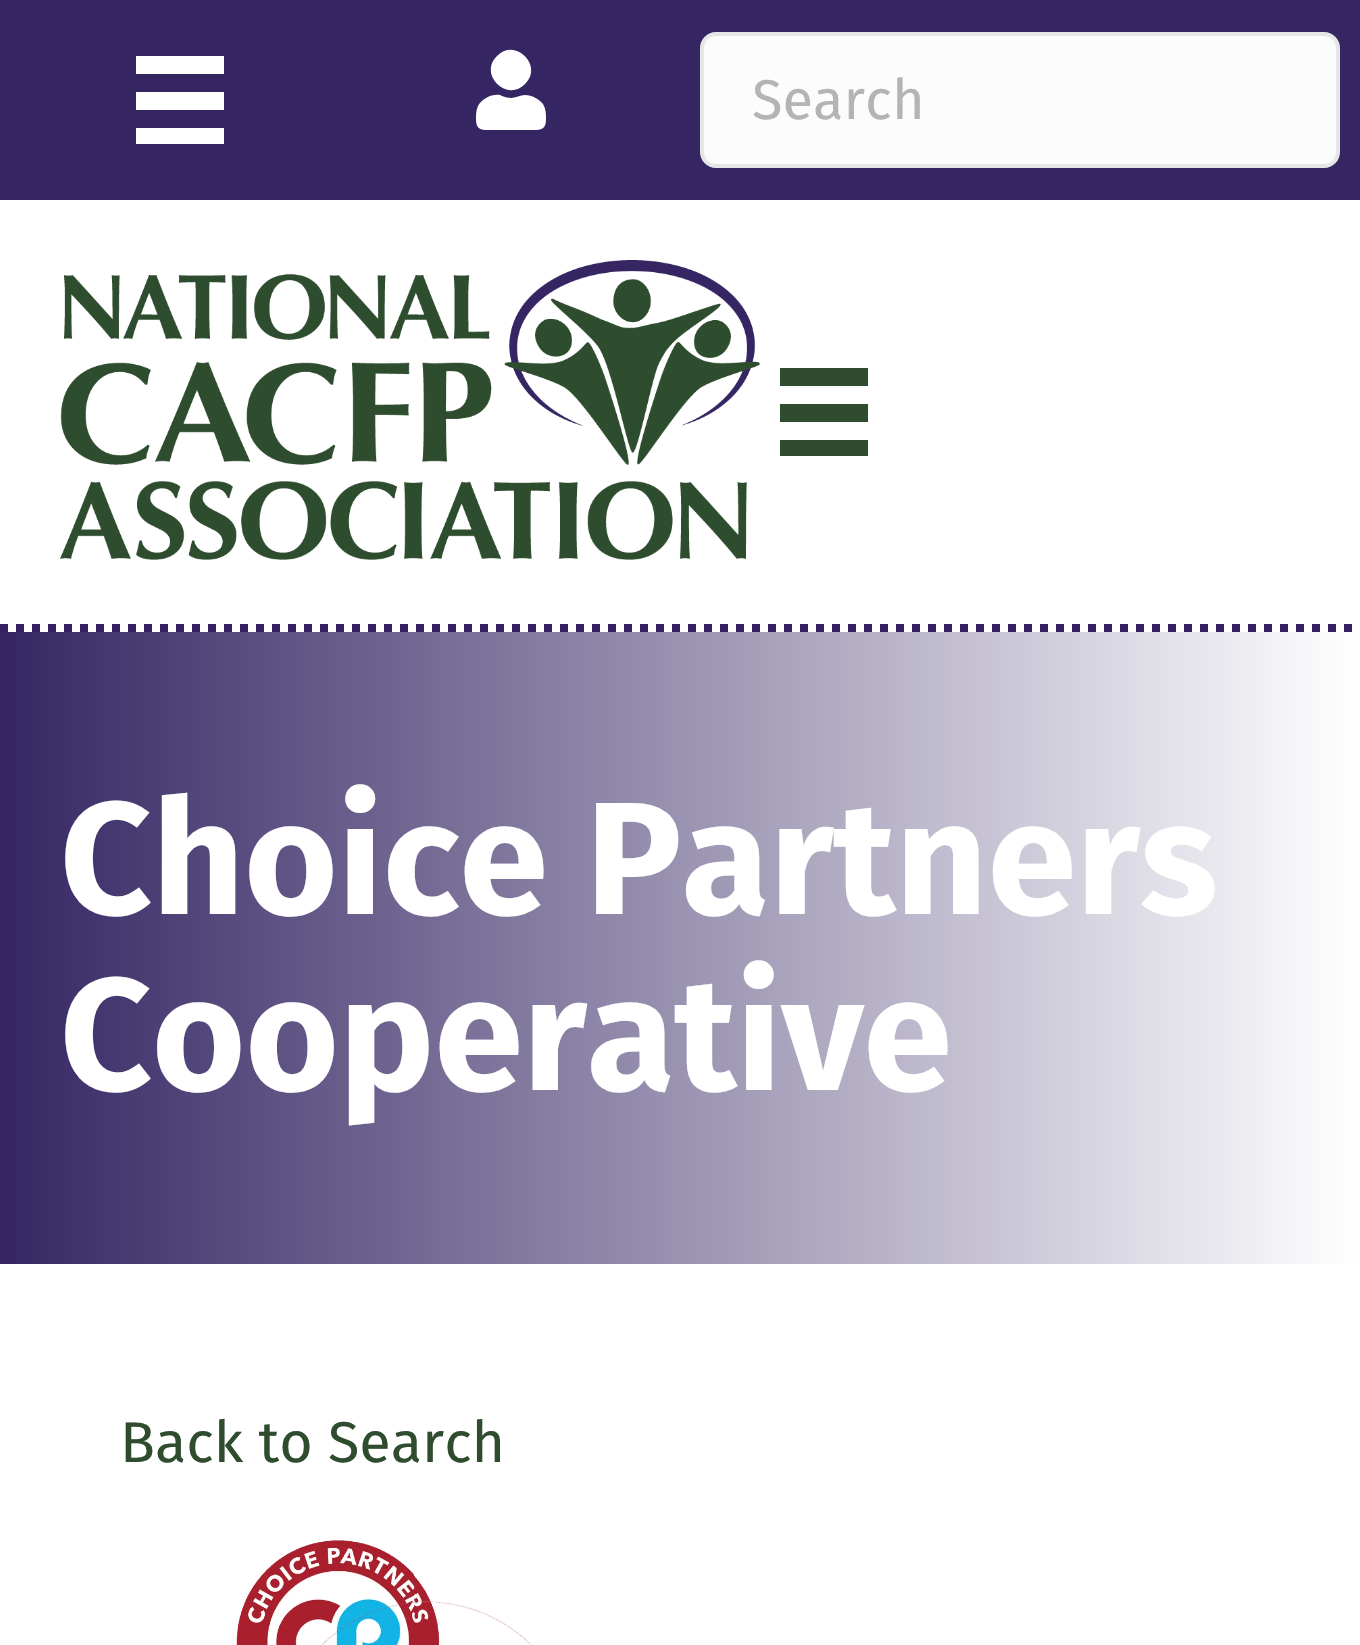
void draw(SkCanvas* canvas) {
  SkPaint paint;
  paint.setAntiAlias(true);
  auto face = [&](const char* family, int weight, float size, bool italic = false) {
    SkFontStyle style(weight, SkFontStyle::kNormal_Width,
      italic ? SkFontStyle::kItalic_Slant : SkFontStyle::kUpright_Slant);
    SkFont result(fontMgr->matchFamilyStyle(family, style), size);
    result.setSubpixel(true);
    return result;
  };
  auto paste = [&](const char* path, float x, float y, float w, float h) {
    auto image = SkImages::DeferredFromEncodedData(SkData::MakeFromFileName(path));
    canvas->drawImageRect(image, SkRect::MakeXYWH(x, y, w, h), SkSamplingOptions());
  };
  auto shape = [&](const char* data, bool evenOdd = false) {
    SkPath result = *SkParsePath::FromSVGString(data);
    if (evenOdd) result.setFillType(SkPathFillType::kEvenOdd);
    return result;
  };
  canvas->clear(0xff352663);
  {
    const struct { float x, y, w, h; SkColor color; } items[] = {
      {136, 56, 88, 18, 0xffffffff},
      {136, 92, 88, 18, 0xffffffff},
      {136, 128, 88, 16, 0xffffffff},
    };
    for (auto [x, y, w, h, color] : items) {
      paint.setColor(color);
      canvas->drawRect(SkRect::MakeXYWH(x, y, w, h), paint);
    }
  }
  canvas->drawPath(shape("M525 84C507 103 478 74 497 56C515 37 544 66 525 84ZM525 95C532 95 539 99 543 104C546 109 546 114 546 119C546 131 540 130 529 130H493C482 130 476 131 476 119C476 115 476 110 478 106C482 99 491 94 500 95L502 96C505 97 508 98 511 98C516 98 520 95 525 95Z"), paint);
  paint.setColor(0xfffcfcfc);
  canvas->drawRoundRect(SkRect::MakeXYWH(702, 34, 636, 132), 14, 14, paint);
  paint.setStroke(true);
  paint.setStrokeWidth(4);
  paint.setColor(0xffe6e6e6);
  canvas->drawRoundRect(SkRect::MakeXYWH(702, 34, 636, 132), 14, 14, paint);
  paint.setStroke(false);
  paint.setColor(0xffffffff);
  canvas->drawRect(SkRect::MakeXYWH(0, 200, 1360, 432), paint);
  paint.setStroke(true);
  paint.setStrokeWidth(8);
  paint.setColor(0xff362063);
  paint.setPathEffect(SkDashPathEffect::Make({{8, 8}}, 0));
  canvas->drawPath(shape("M0 628H1360"), paint);
  paint.setPathEffect(nullptr);
  paste("img/1.png", 60, 260, 700, 300);
  paint.setStroke(false);
  {
    const struct { float x, y, w, h; SkColor color; } items[] = {
      {780, 368, 88, 18, 0xff2f4c2e},
      {780, 404, 88, 18, 0xff2f4c2e},
      {780, 440, 88, 16, 0xff2f4c2e},
      {0, 1264, 1360, 381, 0xffffffff},
    };
    for (auto [x, y, w, h, color] : items) {
      paint.setColor(color);
      canvas->drawRect(SkRect::MakeXYWH(x, y, w, h), paint);
    }
  }
  {
    const SkColor colors[] = {0xff352663, 0xffffffff};
    const float stops[] = {0, 1};
    const SkPoint ends[] = {{0, 948}, {1360, 948}};
    paint.setShader(SkGradientShader::MakeLinear(ends, colors, stops, 2, SkTileMode::kClamp));
    paint.setAlpha(255);
  }
  canvas->drawRect(SkRect::MakeXYWH(16, 632, 1344, 632), paint);
  paste("img/2.png", 236, 1540, 296, 105);
  auto f0 = face("Fira Sans", 400, 56);
  paint.setShader(nullptr);
  paint.setColor(0xffb4b4b4);
  canvas->drawString("Search", 752, 119, f0, paint);
  auto f1 = face("Fira Sans", 700, 160);
  paint.setColor(0xffffffff);
  canvas->drawString("Choice Partners", 60, 914, f1, paint);
  canvas->drawString("Cooperative", 60, 1090, f1, paint);
  auto f2 = face("Fira Sans", 400, 57.5f);
  paint.setColor(0xff2f4c2e);
  canvas->drawString("Back to Search", 120, 1462, f2, paint);
}
